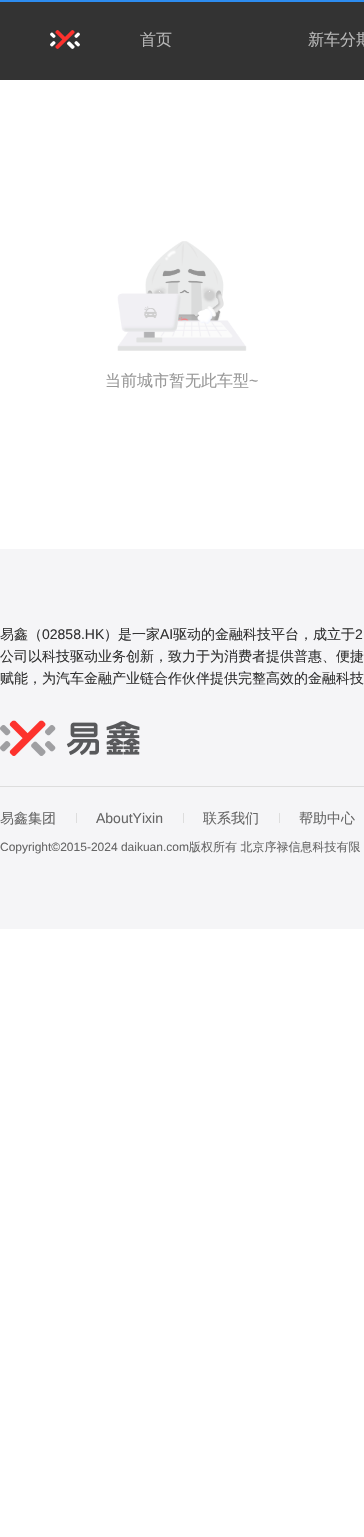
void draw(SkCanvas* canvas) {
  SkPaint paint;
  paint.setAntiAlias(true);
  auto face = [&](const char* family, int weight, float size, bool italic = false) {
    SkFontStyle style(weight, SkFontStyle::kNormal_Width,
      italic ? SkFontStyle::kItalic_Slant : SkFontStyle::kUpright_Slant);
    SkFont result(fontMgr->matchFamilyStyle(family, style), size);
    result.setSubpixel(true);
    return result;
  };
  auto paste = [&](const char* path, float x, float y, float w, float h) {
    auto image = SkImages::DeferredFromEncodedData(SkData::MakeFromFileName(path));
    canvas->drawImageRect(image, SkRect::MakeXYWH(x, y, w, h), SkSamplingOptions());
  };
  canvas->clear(0xffffffff);
  paint.setColor(0xff2d8cf0);
  canvas->drawRect(SkRect::MakeXYWH(0, 0, 364, 2), paint);
  paint.setColor(0xff333333);
  canvas->drawRect(SkRect::MakeXYWH(0, 2, 364, 78), paint);
  paste("img/1.png", 50, 30, 30, 19);
  paste("img/2.png", 117, 241, 130, 110);
  paint.setColor(0xfff5f5f7);
  canvas->drawRect(SkRect::MakeXYWH(0, 549, 364, 380), paint);
  paint.setColor(0xffdddddd);
  canvas->drawRect(SkRect::MakeXYWH(0, 786, 364, 1), paint);
  paste("img/3.png", 0, 720, 140, 36);
  {
    const struct { float x, y, w, h; SkColor color; } items[] = {
      {76, 813, 1, 10, 0xffdddddd},
      {183, 813, 1, 10, 0xffdddddd},
      {279, 813, 1, 10, 0xffdddddd},
    };
    for (auto [x, y, w, h, color] : items) {
      paint.setColor(color);
      canvas->drawRect(SkRect::MakeXYWH(x, y, w, h), paint);
    }
  }
  auto f0 = face("WenQuanYi Zen Hei", 500, 16);
  paint.setColor(0xffb7b7b7);
  canvas->drawString("首页", 140, 45, f0, paint);
  canvas->drawString("新车分期", 308, 45, f0, paint);
  paint.setColor(0xff999999);
  canvas->drawString("当前城市暂无此车型", 105, 386, f0, paint);
  auto f1 = face("Liberation Sans", 400, 16);
  canvas->drawString("~", 249, 386, f1, paint);
  auto f2 = face("WenQuanYi Zen Hei", 500, 14);
  paint.setColor(0xff333333);
  canvas->drawString("易鑫（", 0, 639, f2, paint);
  auto f3 = face("Liberation Sans", 400, 14);
  canvas->drawString("02858.HK", 42, 639, f3, paint);
  canvas->drawString("）是一家", 104, 639, f2, paint);
  canvas->drawString("AI", 160, 639, f3, paint);
  canvas->drawString("驱动的金融科技平台，成立于", 173, 639, f2, paint);
  canvas->drawString("2", 355, 639, f3, paint);
  canvas->drawString("公司以科技驱动业务创新，致力于为消费者提供普惠、便捷", 0, 661, f2, paint);
  canvas->drawString("赋能，为汽车金融产业链合作伙伴提供完整高效的金融科技", 0, 683, f2, paint);
  paint.setColor(0xff666666);
  canvas->drawString("易鑫集团", 0, 823, f2, paint);
  canvas->drawString("AboutYixin", 96, 823, f3, paint);
  canvas->drawString("联系我们", 203, 823, f2, paint);
  canvas->drawString("帮助中心", 299, 823, f2, paint);
  auto f4 = face("Liberation Sans", 400, 12);
  canvas->drawString("Copyright©2015-2024 daikuan.com", 0, 851, f4, paint);
  auto f5 = face("WenQuanYi Zen Hei", 500, 12);
  canvas->drawString("版权所有 北京序禄信息科技有限", 189, 851, f5, paint);
}
